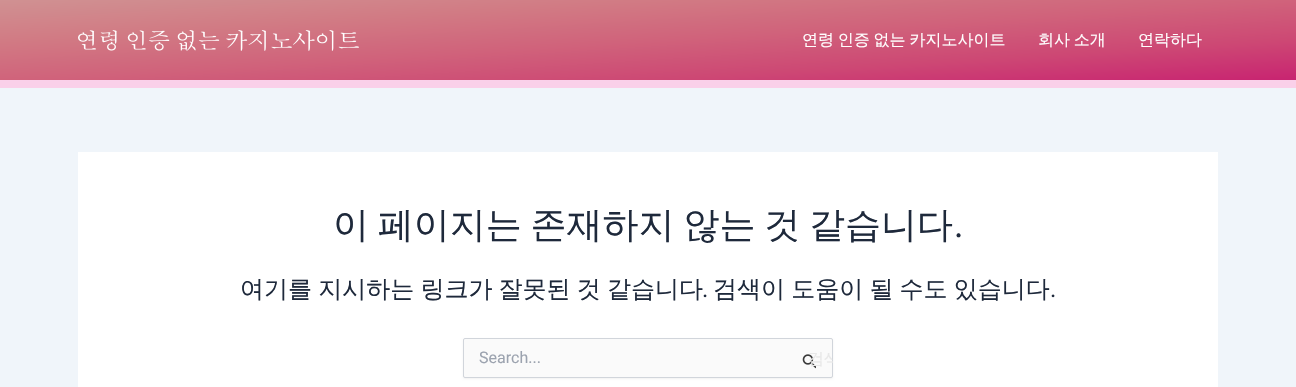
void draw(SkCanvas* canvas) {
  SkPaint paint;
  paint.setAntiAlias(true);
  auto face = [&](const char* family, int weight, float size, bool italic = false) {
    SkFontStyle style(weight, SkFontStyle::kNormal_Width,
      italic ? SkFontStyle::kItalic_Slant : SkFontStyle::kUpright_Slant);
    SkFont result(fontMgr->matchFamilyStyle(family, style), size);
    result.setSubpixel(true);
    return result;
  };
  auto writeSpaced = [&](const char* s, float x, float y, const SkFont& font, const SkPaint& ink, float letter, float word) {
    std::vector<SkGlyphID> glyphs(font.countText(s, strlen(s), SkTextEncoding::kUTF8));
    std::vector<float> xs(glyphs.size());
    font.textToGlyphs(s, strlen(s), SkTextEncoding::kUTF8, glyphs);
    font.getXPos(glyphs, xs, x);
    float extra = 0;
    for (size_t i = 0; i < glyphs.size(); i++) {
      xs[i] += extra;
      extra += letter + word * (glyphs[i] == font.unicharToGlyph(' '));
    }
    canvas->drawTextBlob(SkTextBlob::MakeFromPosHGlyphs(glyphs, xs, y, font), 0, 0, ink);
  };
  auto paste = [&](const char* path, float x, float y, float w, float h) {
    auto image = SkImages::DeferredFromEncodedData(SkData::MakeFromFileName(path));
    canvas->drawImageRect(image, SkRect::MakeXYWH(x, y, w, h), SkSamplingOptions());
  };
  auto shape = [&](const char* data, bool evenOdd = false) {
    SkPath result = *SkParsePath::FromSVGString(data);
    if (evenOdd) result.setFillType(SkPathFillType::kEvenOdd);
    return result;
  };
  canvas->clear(0xfff0f5fa);
  {
    const SkColor colors[] = {0xffd09192, 0xffd17b84, 0xffd0637b, 0xffcd4874, 0xffc82471};
    const float stops[] = {0, 0.25f, 0.5f, 0.75f, 1};
    const SkPoint ends[] = {{643, -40}, {653, 120}};
    paint.setShader(SkGradientShader::MakeLinear(ends, colors, stops, 5, SkTileMode::kClamp));
    paint.setAlpha(255);
  }
  canvas->drawRect(SkRect::MakeXYWH(0, 0, 1296, 80), paint);
  paint.setShader(nullptr);
  paint.setColor(0xfffad0e9);
  canvas->drawRect(SkRect::MakeXYWH(0, 80, 1296, 8), paint);
  paste("img/1.png", 78, 30, 281, 21);
  paint.setColor(0xffffffff);
  canvas->drawRect(SkRect::MakeXYWH(78, 152, 1140, 235), paint);
  paint.setColor(0x0d000000);
  paint.setMaskFilter(SkMaskFilter::MakeBlur(kNormal_SkBlurStyle, 1));
  canvas->drawRoundRect(SkRect::MakeXYWH(463, 339, 370, 40), 2, 2, paint);
  paint.setMaskFilter(nullptr);
  paint.setColor(0xfffafafa);
  canvas->drawRoundRect(SkRect::MakeXYWH(463.5f, 338.5f, 369, 39), 1.5f, 1.5f, paint);
  paint.setStroke(true);
  paint.setStrokeWidth(1);
  paint.setColor(0xffd1d5db);
  canvas->drawRoundRect(SkRect::MakeXYWH(463.5f, 338.5f, 369, 39), 1.5f, 1.5f, paint);
  paste("img/2.png", 802, 354, 14, 15);
  auto f0 = face("WenQuanYi Zen Hei", 500, 16);
  paint.setStroke(false);
  paint.setColor(0xffffffff);
  writeSpaced("연령 인증 없는 카지노사이트", 802, 45, f0, paint, 0, -1);
  writeSpaced("회사 소개", 1038, 45, f0, paint, 0, -1);
  canvas->drawString("연락하다", 1138, 45, f0, paint);
  auto f1 = face("WenQuanYi Zen Hei", 500, 36);
  paint.setColor(0xff1e293b);
  writeSpaced("이 페이지는 존재하지 않는 것 같습니다", 333, 237, f1, paint, 0, -2);
  auto f2 = face("Roboto", 400, 36);
  canvas->drawString(".", 954, 237, f2, paint);
  auto f3 = face("WenQuanYi Zen Hei", 500, 24);
  writeSpaced("여기를 지시하는 링크가 잘못된 것 같습니다", 240, 297, f3, paint, 0, -1);
  auto f4 = face("Roboto", 400, 24);
  canvas->drawString(".", 702, 297, f4, paint);
  writeSpaced("검색이 도움이 될 수도 있습니다", 713, 297, f3, paint, 0, -1);
  canvas->drawString(".", 1050, 297, f4, paint);
  auto f5 = face("Roboto", 400, 16);
  paint.setColor(0xff9ca3af);
  canvas->drawString("Search...", 479, 363, f5, paint);
  canvas->save();
  canvas->clipPath(shape("M790 338H831C832 338 833 339 833 340V378C833 379 832 380 831 380H790C789 380 788 379 788 378V340C788 339 789 338 790 338Z"), true);
  paint.setColor(0xffe8e8e8);
  canvas->drawString("검색", 808, 364, f0, paint);
  canvas->restore();
}
